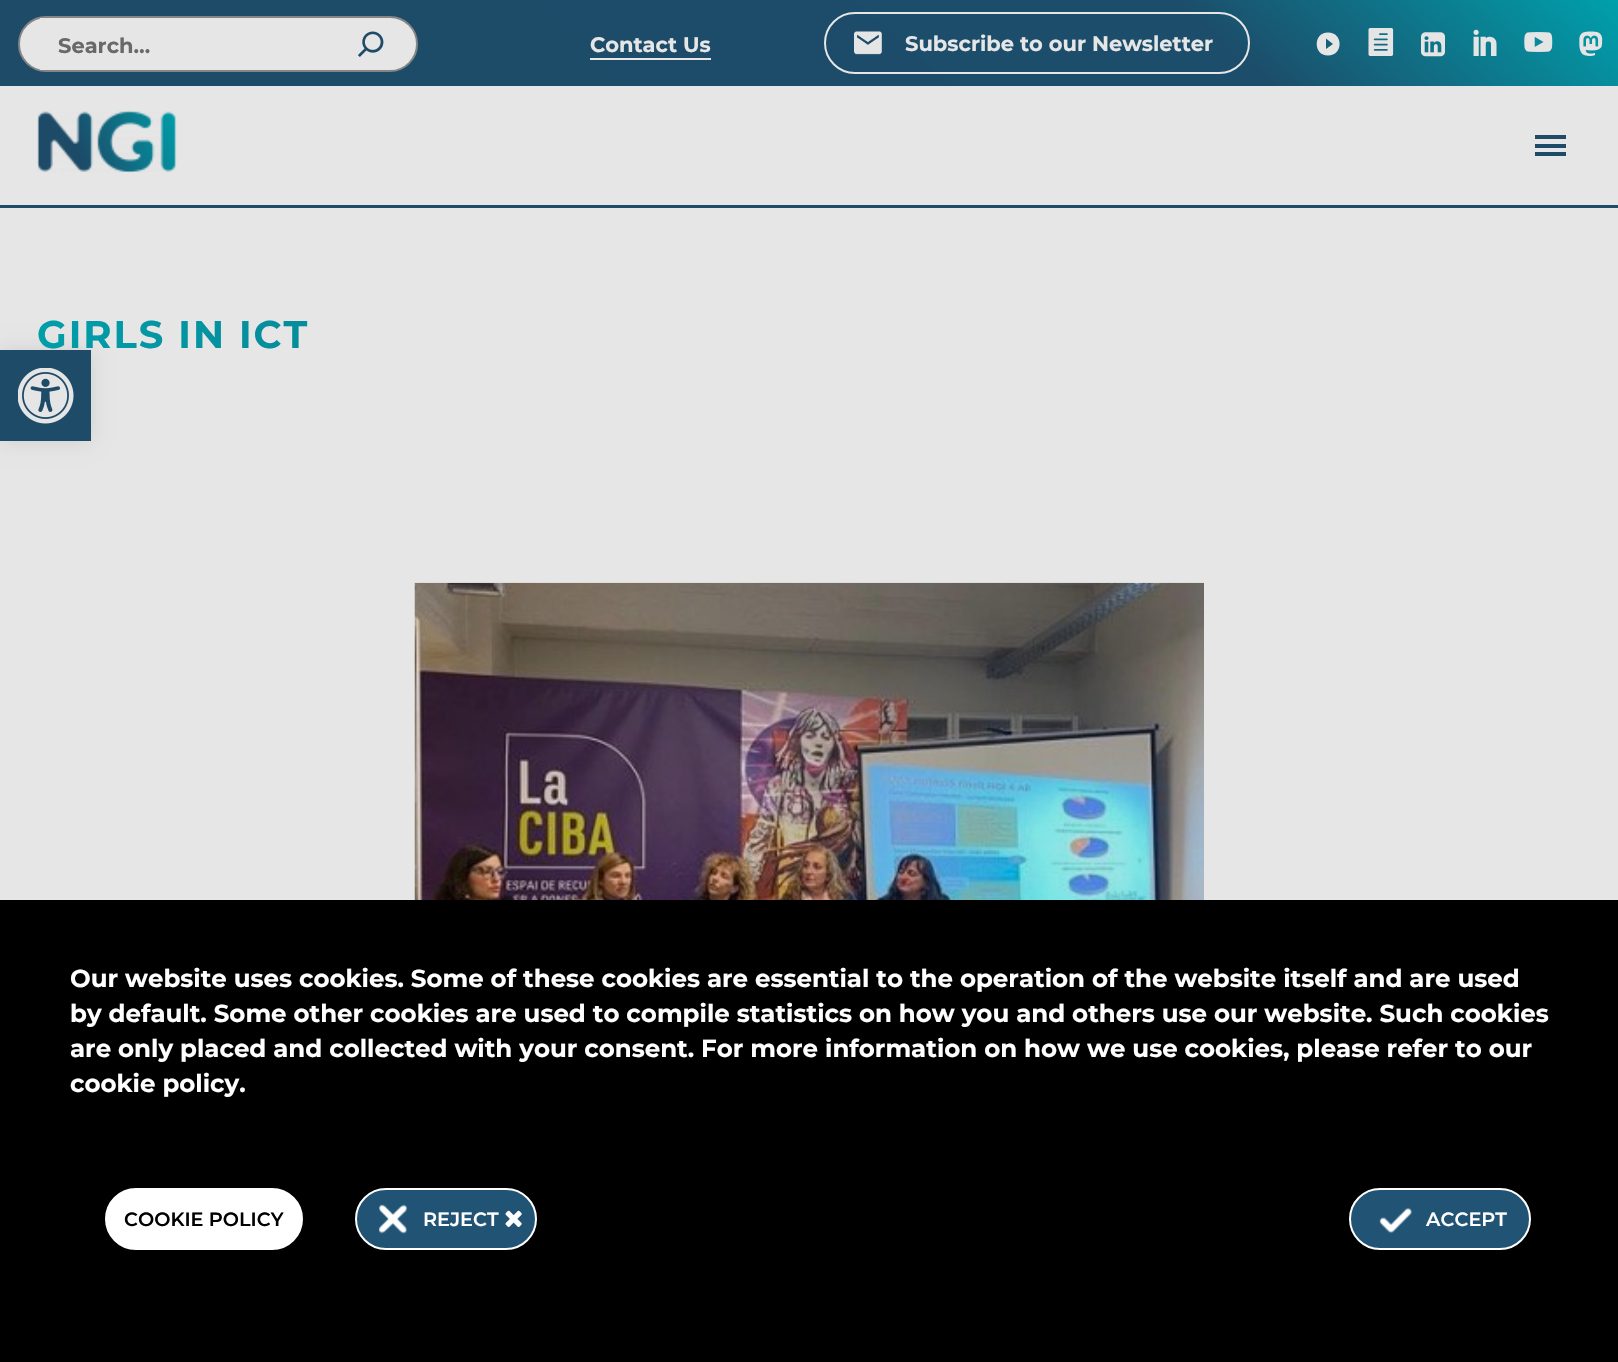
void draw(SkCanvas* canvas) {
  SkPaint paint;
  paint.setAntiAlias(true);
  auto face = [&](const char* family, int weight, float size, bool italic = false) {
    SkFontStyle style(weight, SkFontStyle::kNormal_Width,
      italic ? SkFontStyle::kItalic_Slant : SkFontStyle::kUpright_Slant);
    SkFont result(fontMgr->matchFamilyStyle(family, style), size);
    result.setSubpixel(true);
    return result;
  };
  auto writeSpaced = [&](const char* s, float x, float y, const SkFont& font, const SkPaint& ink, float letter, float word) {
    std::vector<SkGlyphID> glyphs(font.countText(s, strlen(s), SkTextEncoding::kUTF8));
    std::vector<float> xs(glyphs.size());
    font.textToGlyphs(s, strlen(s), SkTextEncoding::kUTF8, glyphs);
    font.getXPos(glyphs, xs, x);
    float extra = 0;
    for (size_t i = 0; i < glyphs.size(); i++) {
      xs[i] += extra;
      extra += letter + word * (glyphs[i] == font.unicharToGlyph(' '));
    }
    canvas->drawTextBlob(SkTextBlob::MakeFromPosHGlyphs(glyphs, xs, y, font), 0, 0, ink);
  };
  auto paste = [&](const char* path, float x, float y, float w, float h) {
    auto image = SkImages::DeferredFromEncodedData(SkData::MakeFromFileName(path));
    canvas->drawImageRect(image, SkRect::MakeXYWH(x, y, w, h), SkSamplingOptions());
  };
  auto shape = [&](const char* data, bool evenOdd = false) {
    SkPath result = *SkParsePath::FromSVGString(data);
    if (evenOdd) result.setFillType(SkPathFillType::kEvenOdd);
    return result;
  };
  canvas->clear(0xffe6e6e6);
  {
    const SkColor colors[] = {0xff1d4b68, 0xff1c4d6a, 0xff00a0ac};
    const float stops[] = {0, 0.74f, 1};
    const SkPoint ends[] = {{440, 468}, {1179, -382}};
    paint.setShader(SkGradientShader::MakeLinear(ends, colors, stops, 3, SkTileMode::kClamp));
    paint.setAlpha(255);
  }
  canvas->drawRect(SkRect::MakeXYWH(0, 0, 1618, 86), paint);
  paint.setShader(nullptr);
  paint.setColor(0xffe6e6e6);
  canvas->drawRoundRect(SkRect::MakeXYWH(19, 17, 398, 54), 27, 27, paint);
  paint.setStroke(true);
  paint.setStrokeWidth(2);
  paint.setColor(0xff858585);
  canvas->drawRoundRect(SkRect::MakeXYWH(19, 17, 398, 54), 27, 27, paint);
  paint.setStroke(false);
  paint.setColor(0xffe6e6e6);
  canvas->drawRect(SkRect::MakeXYWH(40, 18, 5, 52), paint);
  paste("img/1.png", 358, 31, 26, 26);
  canvas->drawRect(SkRect::MakeXYWH(590, 58, 121, 2), paint);
  paint.setStroke(true);
  canvas->drawRoundRect(SkRect::MakeXYWH(825, 13, 424, 60), 30, 30, paint);
  paste("img/2.png", 854, 31, 28, 24);
  paint.setStroke(false);
  canvas->drawPath(shape("M1326 49V38.5L1333 44ZM1328 32.5C1313 32.5 1313 55.5 1328 55.5C1343.5 55.5 1343.5 32.5 1328 32.5Z"), paint);
  paste("img/3.png", 1368, 28, 26, 28);
  paste("img/4.png", 1421, 32, 24, 25);
  paste("img/5.png", 1473, 29, 24, 27);
  paste("img/6.png", 1524, 32, 29, 20);
  paste("img/7.png", 1579, 31, 24, 25);
  paint.setColor(0xff1d4b68);
  canvas->drawRect(SkRect::MakeXYWH(0, 205, 1618, 3), paint);
  paste("img/8.png", 37, 110, 140, 63);
  {
    const struct { float x, y, w, h; SkColor color; } items[] = {
      {1535, 135, 31, 4, 0xff1d4b68},
      {1535, 144, 31, 4, 0xff1d4b68},
      {1535, 152, 31, 4, 0xff1d4b68},
    };
    for (auto [x, y, w, h, color] : items) {
      paint.setColor(color);
      canvas->drawRect(SkRect::MakeXYWH(x, y, w, h), paint);
    }
  }
  paste("img/9.png", 414, 582, 790, 318);
  paint.setColor(0x1a000000);
  paint.setMaskFilter(SkMaskFilter::MakeBlur(kNormal_SkBlurStyle, 9));
  canvas->drawRect(SkRect::MakeXYWH(0, 350, 91, 91), paint);
  paint.setMaskFilter(nullptr);
  paint.setColor(0xff1d4b68);
  canvas->drawRect(SkRect::MakeXYWH(0, 350, 91, 91), paint);
  paste("img/10.png", 18, 368, 56, 56);
  paint.setColor(0xff000000);
  canvas->drawRect(SkRect::MakeXYWH(0, 900, 1618, 462), paint);
  paint.setColor(0xffffffff);
  canvas->drawRoundRect(SkRect::MakeXYWH(106, 1189, 196, 60), 30, 30, paint);
  paint.setStroke(true);
  canvas->drawRoundRect(SkRect::MakeXYWH(106, 1189, 196, 60), 30, 30, paint);
  paint.setStroke(false);
  paint.setColor(0xff205374);
  canvas->drawRoundRect(SkRect::MakeXYWH(356, 1189, 180, 60), 30, 30, paint);
  paint.setStroke(true);
  paint.setColor(0xffffffff);
  canvas->drawRoundRect(SkRect::MakeXYWH(356, 1189, 180, 60), 30, 30, paint);
  paste("img/11.png", 379, 1204, 29, 30);
  paste("img/12.png", 505, 1210, 17, 17);
  paint.setStroke(false);
  paint.setColor(0xff205374);
  canvas->drawRoundRect(SkRect::MakeXYWH(1350, 1189, 180, 60), 30, 30, paint);
  paint.setStroke(true);
  paint.setColor(0xffffffff);
  canvas->drawRoundRect(SkRect::MakeXYWH(1350, 1189, 180, 60), 30, 30, paint);
  paste("img/13.png", 1379, 1207, 33, 26);
  auto f0 = face("Montserrat", 700, 21);
  paint.setStroke(false);
  paint.setColor(0xff696969);
  canvas->drawString("Search…", 58, 53, f0, paint);
  paint.setColor(0xffe6e6e6);
  canvas->drawString("Contact Us", 590, 52, f0, paint);
  canvas->drawString("Subscribe to our Newsletter", 905, 51, f0, paint);
  auto f1 = face("Montserrat", 700, 38.5f);
  {
    const SkColor colors[] = {0xff009ea9, 0xff1d4b68};
    const float stops[] = {0, 0.8f};
    const SkPoint ends[] = {{37, 336}, {1582, 336}};
    paint.setShader(SkGradientShader::MakeLinear(ends, colors, stops, 2, SkTileMode::kClamp));
    paint.setAlpha(255);
  }
  writeSpaced("GIRLS IN ICT", 37, 348, f1, paint, 2, 0);
  auto f2 = face("Montserrat", 700, 24.5f);
  paint.setShader(nullptr);
  paint.setColor(0xffffffff);
  {
    const struct { const char* s; float x, y; } items[] = {
      {"Our website uses cookies. Some of these cookies are essential to the operation of the website itself and are used", 70, 987},
      {"by default. Some other cookies are used to compile statistics on how you and others use our website. Such cookies", 70, 1022},
      {"are only placed and collected with your consent. For more information on how we use cookies, please refer to our", 70, 1057},
      {"cookie policy.", 70, 1092},
    };
    for (auto [s, x, y] : items) {
      canvas->drawString(s, x, y, f2, paint);
    }
  }
  auto f3 = face("Montserrat", 600, 19.25f);
  paint.setColor(0xff000000);
  canvas->drawString("COOKIE POLICY", 124, 1226, f3, paint);
  paint.setColor(0xffffffff);
  canvas->drawString("REJECT", 423, 1226, f3, paint);
  canvas->drawString("ACCEPT", 1426, 1226, f3, paint);
}
